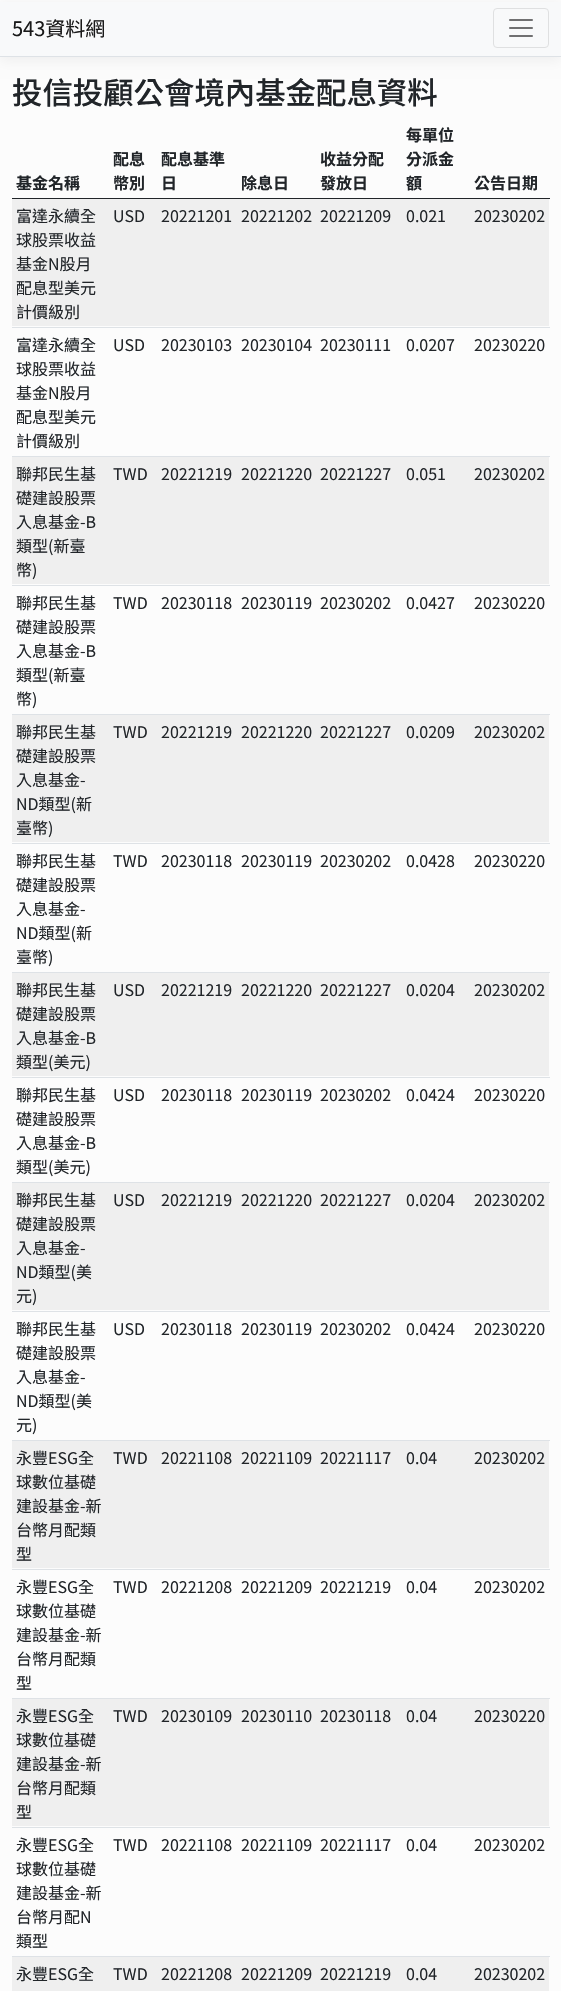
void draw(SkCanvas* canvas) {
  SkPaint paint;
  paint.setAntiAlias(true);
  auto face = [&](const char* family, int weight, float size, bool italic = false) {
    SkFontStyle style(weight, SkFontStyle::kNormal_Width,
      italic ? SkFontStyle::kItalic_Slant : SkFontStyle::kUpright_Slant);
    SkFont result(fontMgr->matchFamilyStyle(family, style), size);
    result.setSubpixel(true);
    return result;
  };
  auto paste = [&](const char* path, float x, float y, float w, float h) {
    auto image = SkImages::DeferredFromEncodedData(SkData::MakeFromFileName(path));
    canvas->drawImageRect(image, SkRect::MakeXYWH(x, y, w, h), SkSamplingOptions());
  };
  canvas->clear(0xfffcfcfc);
  paint.setColor(0x0d000000);
  paint.setMaskFilter(SkMaskFilter::MakeBlur(kNormal_SkBlurStyle, 6));
  canvas->drawRect(SkRect::MakeXYWH(0, 4, 561, 57), paint);
  paint.setMaskFilter(nullptr);
  paint.setColor(0xfff8f9fa);
  canvas->drawRect(SkRect::MakeXYWH(0, 2, 561, 54), paint);
  paint.setColor(0xffdee2e6);
  canvas->drawRect(SkRect::MakeXYWH(0, 56, 561, 1), paint);
  paint.setStroke(true);
  paint.setStrokeWidth(1);
  paint.setColor(0xffdfe0e1);
  canvas->drawRoundRect(SkRect::MakeXYWH(493.5f, 8.5f, 55, 39), 3.5f, 3.5f, paint);
  paste("img/1.png", 509, 19, 24, 18);
  paint.setStroke(false);
  {
    const struct { float x, y, w, h; SkColor color; } items[] = {
      {12, 198, 538, 1, 0xff212529},
      {12, 199, 537, 127, 0xffefefef},
      {12, 327, 538, 1, 0xffdee2e6},
      {12, 456, 538, 1, 0xffdee2e6},
      {12, 457, 537, 127, 0xffefefef},
      {12, 585, 538, 1, 0xffdee2e6},
      {12, 714, 538, 1, 0xffdee2e6},
      {12, 715, 537, 127, 0xffefefef},
      {12, 843, 538, 1, 0xffdee2e6},
      {12, 972, 538, 1, 0xffdee2e6},
      {12, 973, 537, 103, 0xffefefef},
      {12, 1077, 538, 1, 0xffdee2e6},
      {12, 1182, 538, 1, 0xffdee2e6},
      {12, 1183, 537, 127, 0xffefefef},
      {12, 1311, 538, 1, 0xffdee2e6},
      {12, 1440, 538, 1, 0xffdee2e6},
      {12, 1441, 537, 127, 0xffefefef},
      {12, 1569, 538, 1, 0xffdee2e6},
      {12, 1698, 538, 1, 0xffdee2e6},
      {12, 1699, 537, 127, 0xffefefef},
      {12, 1827, 538, 1, 0xffdee2e6},
      {12, 1956, 538, 1, 0xffdee2e6},
      {12, 1957, 537, 34, 0xffefefef},
    };
    for (auto [x, y, w, h, color] : items) {
      paint.setColor(color);
      canvas->drawRect(SkRect::MakeXYWH(x, y, w, h), paint);
    }
  }
  auto f0 = face("Noto Sans TC", 400, 20);
  paint.setColor(0xff191919);
  canvas->drawString("543資料網", 12, 36, f0, paint);
  auto f1 = face("Noto Sans TC", 500, 30.4f);
  paint.setColor(0xff212529);
  canvas->drawString("投信投顧公會境內基金配息資料", 12, 104, f1, paint);
  auto f2 = face("Noto Sans TC", 700, 16);
  {
    const struct { const char* s; float x, y; } items[] = {
      {"基金名稱", 16, 189},
      {"配息", 113, 165},
      {"幣別", 113, 189},
      {"配息基準", 161, 165},
      {"日", 161, 189},
      {"除息日", 241, 189},
      {"收益分配", 320, 165},
      {"發放日", 320, 189},
      {"每單位", 406, 141},
      {"分派金", 406, 165},
      {"額", 406, 189},
      {"公告日期", 474, 189},
    };
    for (auto [s, x, y] : items) {
      canvas->drawString(s, x, y, f2, paint);
    }
  }
  auto f3 = face("Noto Sans TC", 400, 16);
  {
    const struct { const char* s; float x, y; } items[] = {
      {"富達永續全", 16, 222},
      {"球股票收益", 16, 246},
      {"基金N股月", 16, 270},
      {"配息型美元", 16, 294},
      {"計價級別", 16, 318},
      {"USD", 113, 222},
      {"20221201", 161, 222},
      {"20221202", 241, 222},
      {"20221209", 320, 222},
      {"0.021", 406, 222},
      {"20230202", 474, 222},
      {"富達永續全", 16, 351},
      {"球股票收益", 16, 375},
      {"基金N股月", 16, 399},
      {"配息型美元", 16, 423},
      {"計價級別", 16, 447},
      {"USD", 113, 351},
      {"20230103", 161, 351},
      {"20230104", 241, 351},
      {"20230111", 320, 351},
      {"0.0207", 406, 351},
      {"20230220", 474, 351},
      {"聯邦民生基", 16, 480},
      {"礎建設股票", 16, 504},
      {"入息基金-B", 16, 528},
      {"類型(新臺", 16, 552},
      {"幣)", 16, 576},
      {"TWD", 113, 480},
      {"20221219", 161, 480},
      {"20221220", 241, 480},
      {"20221227", 320, 480},
      {"0.051", 406, 480},
      {"20230202", 474, 480},
      {"聯邦民生基", 16, 609},
      {"礎建設股票", 16, 633},
      {"入息基金-B", 16, 657},
      {"類型(新臺", 16, 681},
      {"幣)", 16, 705},
      {"TWD", 113, 609},
      {"20230118", 161, 609},
      {"20230119", 241, 609},
      {"20230202", 320, 609},
      {"0.0427", 406, 609},
      {"20230220", 474, 609},
      {"聯邦民生基", 16, 738},
      {"礎建設股票", 16, 762},
      {"入息基金-", 16, 786},
      {"ND類型(新", 16, 810},
      {"臺幣)", 16, 834},
      {"TWD", 113, 738},
      {"20221219", 161, 738},
      {"20221220", 241, 738},
      {"20221227", 320, 738},
      {"0.0209", 406, 738},
      {"20230202", 474, 738},
      {"聯邦民生基", 16, 867},
      {"礎建設股票", 16, 891},
      {"入息基金-", 16, 915},
      {"ND類型(新", 16, 939},
      {"臺幣)", 16, 963},
      {"TWD", 113, 867},
      {"20230118", 161, 867},
      {"20230119", 241, 867},
      {"20230202", 320, 867},
      {"0.0428", 406, 867},
      {"20230220", 474, 867},
      {"聯邦民生基", 16, 996},
      {"礎建設股票", 16, 1020},
      {"入息基金-B", 16, 1044},
      {"類型(美元)", 16, 1068},
      {"USD", 113, 996},
      {"20221219", 161, 996},
      {"20221220", 241, 996},
      {"20221227", 320, 996},
      {"0.0204", 406, 996},
      {"20230202", 474, 996},
      {"聯邦民生基", 16, 1101},
      {"礎建設股票", 16, 1125},
      {"入息基金-B", 16, 1149},
      {"類型(美元)", 16, 1173},
      {"USD", 113, 1101},
      {"20230118", 161, 1101},
      {"20230119", 241, 1101},
      {"20230202", 320, 1101},
      {"0.0424", 406, 1101},
      {"20230220", 474, 1101},
      {"聯邦民生基", 16, 1206},
      {"礎建設股票", 16, 1230},
      {"入息基金-", 16, 1254},
      {"ND類型(美", 16, 1278},
      {"元)", 16, 1302},
      {"USD", 113, 1206},
      {"20221219", 161, 1206},
      {"20221220", 241, 1206},
      {"20221227", 320, 1206},
      {"0.0204", 406, 1206},
      {"20230202", 474, 1206},
      {"聯邦民生基", 16, 1335},
      {"礎建設股票", 16, 1359},
      {"入息基金-", 16, 1383},
      {"ND類型(美", 16, 1407},
      {"元)", 16, 1431},
      {"USD", 113, 1335},
      {"20230118", 161, 1335},
      {"20230119", 241, 1335},
      {"20230202", 320, 1335},
      {"0.0424", 406, 1335},
      {"20230220", 474, 1335},
      {"永豐ESG全", 16, 1464},
      {"球數位基礎", 16, 1488},
      {"建設基金-新", 16, 1512},
      {"台幣月配類", 16, 1536},
      {"型", 16, 1560},
      {"TWD", 113, 1464},
      {"20221108", 161, 1464},
      {"20221109", 241, 1464},
      {"20221117", 320, 1464},
      {"0.04", 406, 1464},
      {"20230202", 474, 1464},
      {"永豐ESG全", 16, 1593},
      {"球數位基礎", 16, 1617},
      {"建設基金-新", 16, 1641},
      {"台幣月配類", 16, 1665},
      {"型", 16, 1689},
      {"TWD", 113, 1593},
      {"20221208", 161, 1593},
      {"20221209", 241, 1593},
      {"20221219", 320, 1593},
      {"0.04", 406, 1593},
      {"20230202", 474, 1593},
      {"永豐ESG全", 16, 1722},
      {"球數位基礎", 16, 1746},
      {"建設基金-新", 16, 1770},
      {"台幣月配類", 16, 1794},
      {"型", 16, 1818},
      {"TWD", 113, 1722},
      {"20230109", 161, 1722},
      {"20230110", 241, 1722},
      {"20230118", 320, 1722},
      {"0.04", 406, 1722},
      {"20230220", 474, 1722},
      {"永豐ESG全", 16, 1851},
      {"球數位基礎", 16, 1875},
      {"建設基金-新", 16, 1899},
      {"台幣月配N", 16, 1923},
      {"類型", 16, 1947},
      {"TWD", 113, 1851},
      {"20221108", 161, 1851},
      {"20221109", 241, 1851},
      {"20221117", 320, 1851},
      {"0.04", 406, 1851},
      {"20230202", 474, 1851},
      {"永豐ESG全", 16, 1980},
      {"TWD", 113, 1980},
      {"20221208", 161, 1980},
      {"20221209", 241, 1980},
      {"20221219", 320, 1980},
      {"0.04", 406, 1980},
      {"20230202", 474, 1980},
    };
    for (auto [s, x, y] : items) {
      canvas->drawString(s, x, y, f3, paint);
    }
  }
}
